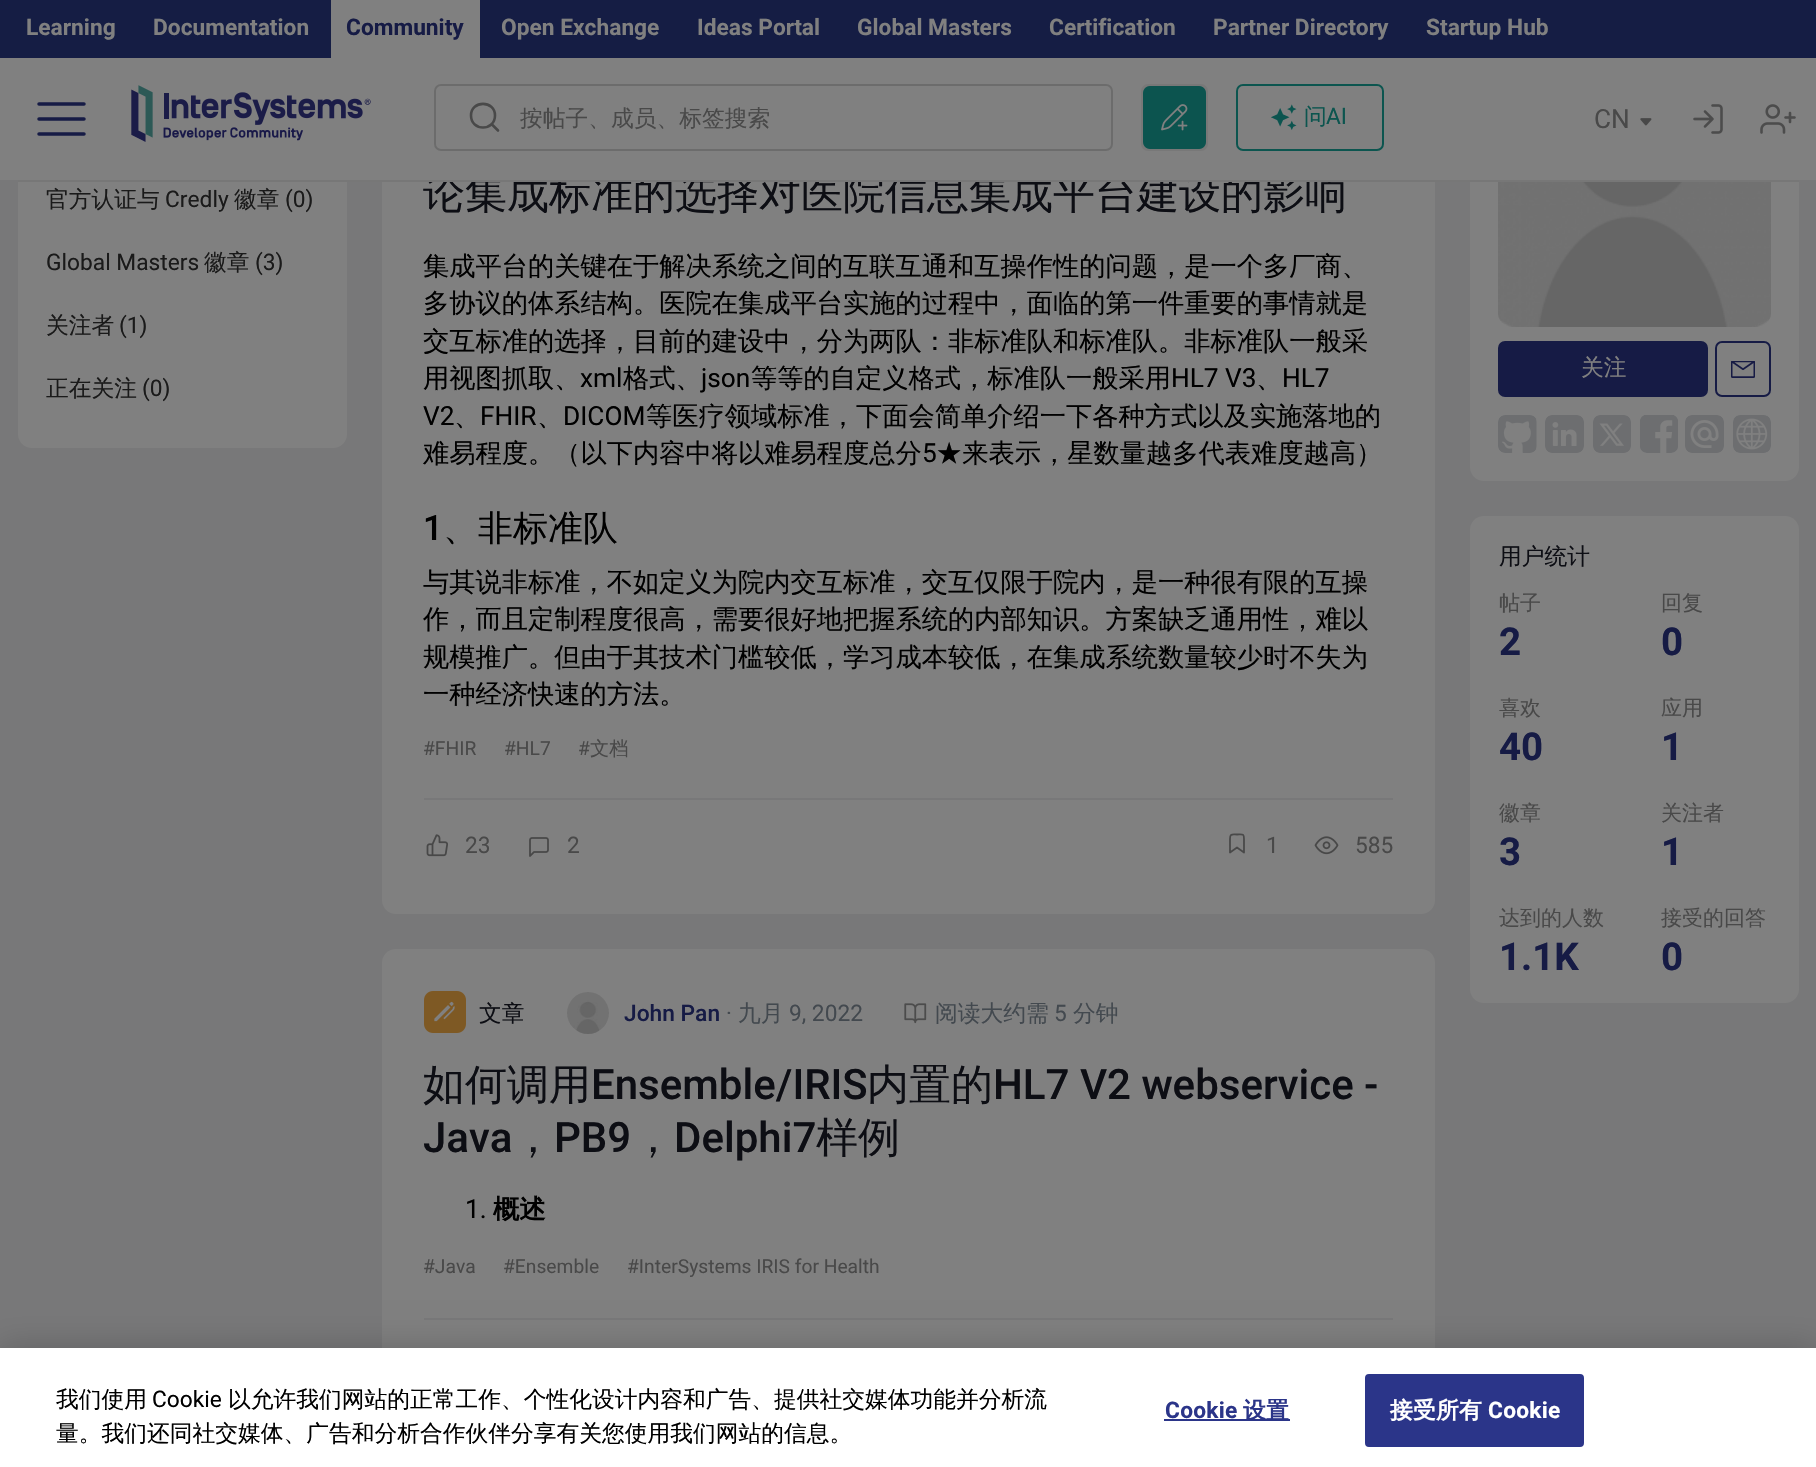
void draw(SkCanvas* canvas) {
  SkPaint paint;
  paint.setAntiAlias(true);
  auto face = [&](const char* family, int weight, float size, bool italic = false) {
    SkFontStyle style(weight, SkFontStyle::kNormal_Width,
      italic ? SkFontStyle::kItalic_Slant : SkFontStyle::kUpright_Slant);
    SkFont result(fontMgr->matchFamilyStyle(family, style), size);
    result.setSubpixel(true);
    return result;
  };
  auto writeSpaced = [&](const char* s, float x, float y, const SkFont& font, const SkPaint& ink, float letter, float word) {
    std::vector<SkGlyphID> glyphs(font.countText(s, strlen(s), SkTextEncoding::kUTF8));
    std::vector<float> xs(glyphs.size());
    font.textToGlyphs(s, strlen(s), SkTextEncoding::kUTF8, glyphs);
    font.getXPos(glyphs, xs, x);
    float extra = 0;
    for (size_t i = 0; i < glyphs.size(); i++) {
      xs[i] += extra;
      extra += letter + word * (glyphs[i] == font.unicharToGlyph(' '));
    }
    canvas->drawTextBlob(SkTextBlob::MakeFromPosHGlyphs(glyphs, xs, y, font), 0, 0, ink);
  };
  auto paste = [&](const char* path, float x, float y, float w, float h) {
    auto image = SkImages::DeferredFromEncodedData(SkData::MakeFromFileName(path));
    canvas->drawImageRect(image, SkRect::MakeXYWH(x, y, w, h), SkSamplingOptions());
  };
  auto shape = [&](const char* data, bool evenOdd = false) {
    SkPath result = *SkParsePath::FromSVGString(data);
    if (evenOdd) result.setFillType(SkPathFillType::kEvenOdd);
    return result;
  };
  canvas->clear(0xff787879);
  paint.setColor(0xff808080);
  canvas->drawRoundRect(SkRect::MakeXYWH(18, -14, 329, 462), 14, 14, paint);
  canvas->drawRoundRect(SkRect::MakeXYWH(1470, -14, 329, 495), 14, 14, paint);
  paint.setColor(0xff151d44);
  canvas->drawRect(SkRect::MakeXYWH(0, 0, 1816, 58), paint);
  paint.setColor(0xff808080);
  canvas->drawRect(SkRect::MakeXYWH(331, 0, 149, 58), paint);
  canvas->drawRoundRect(SkRect::MakeXYWH(382, 58, 1053, 856), 14, 14, paint);
  paint.setColor(0xff787879);
  canvas->drawRect(SkRect::MakeXYWH(424, 798, 969, 2), paint);
  paste("img/7.png", 426, 834, 22, 23);
  paste("img/8.png", 529, 837, 20, 20);
  paint.setStroke(true);
  paint.setStrokeWidth(1.8f);
  paint.setStrokeCap(SkPaint::kRound_Cap);
  paint.setStrokeJoin(SkPaint::kRound_Join);
  paint.setColor(0xff494949);
  canvas->drawPath(shape("M1244 852.5L1237 847.5L1230 852.5V839C1230 833.5 1231.5 834.5 1237 834.5C1243 834.5 1244 833.5 1244 839Z"), paint);
  paste("img/9.png", 1314, 836, 25, 19);
  paint.setStroke(false);
  paint.setColor(0xff808080);
  canvas->drawRoundRect(SkRect::MakeXYWH(382, 949, 1053, 484), 14, 14, paint);
  paste("img/10.png", 424, 991, 42, 42);
  paste("img/11.png", 567, 992, 42, 42);
  paste("img/12.png", 904, 1003, 23, 21);
  paint.setColor(0xff787879);
  canvas->drawRect(SkRect::MakeXYWH(424, 1318, 969, 2), paint);
  paste("img/13.png", 1498, 182, 273, 145);
  paint.setColor(0xff161b45);
  canvas->drawRoundRect(SkRect::MakeXYWH(1499, 342, 208, 54), 6, 6, paint);
  paint.setStroke(true);
  paint.setStrokeWidth(2);
  paint.setStrokeCap(SkPaint::kButt_Cap);
  paint.setStrokeJoin(SkPaint::kMiter_Join);
  canvas->drawRoundRect(SkRect::MakeXYWH(1499, 342, 208, 54), 6, 6, paint);
  paste("img/14.png", 1731, 361, 24, 17);
  canvas->drawRoundRect(SkRect::MakeXYWH(1716, 342, 54, 54), 6, 6, paint);
  paste("img/15.png", 1498, 415, 39, 38);
  paste("img/16.png", 1545, 415, 39, 38);
  paste("img/17.png", 1593, 415, 38, 38);
  paste("img/18.png", 1640, 415, 38, 38);
  paste("img/19.png", 1685, 415, 39, 38);
  paste("img/20.png", 1733, 415, 38, 38);
  paint.setStroke(false);
  paint.setColor(0xff808080);
  canvas->drawRoundRect(SkRect::MakeXYWH(1470, 516, 329, 487), 14, 14, paint);
  paint.setColor(0x33000000);
  paint.setMaskFilter(SkMaskFilter::MakeBlur(kNormal_SkBlurStyle, 16));
  canvas->drawRect(SkRect::MakeXYWH(0, 1348, 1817, 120), paint);
  paint.setMaskFilter(nullptr);
  paint.setColor(0xffffffff);
  canvas->drawRect(SkRect::MakeXYWH(0, 1348, 1816, 119), paint);
  paint.setColor(0xff2b3589);
  canvas->drawRect(SkRect::MakeXYWH(1164, 1419, 126, 2), paint);
  canvas->drawRoundRect(SkRect::MakeXYWH(1366, 1375, 217, 71), 3, 3, paint);
  paint.setStroke(true);
  canvas->drawRoundRect(SkRect::MakeXYWH(1366, 1375, 217, 71), 3, 3, paint);
  auto f0 = face("Roboto", 700, 22.75f);
  paint.setStroke(false);
  paint.setColor(0xff808080);
  canvas->drawString("Learning", 26, 35, f0, paint);
  canvas->drawString("Documentation", 153, 35, f0, paint);
  paint.setColor(0xff161b45);
  canvas->drawString("Community", 346, 35, f0, paint);
  paint.setColor(0xff808080);
  {
    const struct { const char* s; float x, y; } items[] = {
      {"Open Exchange", 501, 35},
      {"Ideas Portal", 697, 35},
      {"Global Masters", 857, 35},
      {"Certification", 1049, 35},
      {"Partner Directory", 1213, 35},
      {"Startup Hub", 1426, 35},
    };
    for (auto [s, x, y] : items) {
      canvas->drawString(s, x, y, f0, paint);
    }
  }
  auto f1 = face("WenQuanYi Zen Hei", 500, 22.75f);
  paint.setColor(0xff1a1a1a);
  canvas->drawString("官方认证与", 46, 207, f1, paint);
  auto f2 = face("Roboto", 400, 22.75f);
  canvas->drawString("Credly", 165, 207, f2, paint);
  canvas->drawString("徽章", 234, 207, f1, paint);
  canvas->drawString("(0)", 285, 207, f2, paint);
  canvas->drawString("Global Masters", 46, 270, f2, paint);
  canvas->drawString("徽章", 204, 270, f1, paint);
  canvas->drawString("(3)", 255, 270, f2, paint);
  canvas->drawString("关注者", 46, 333, f1, paint);
  canvas->drawString("(1)", 119, 333, f2, paint);
  canvas->drawString("正在关注", 46, 396, f1, paint);
  canvas->drawString("(0)", 142, 396, f2, paint);
  auto f3 = face("WenQuanYi Zen Hei", 500, 42);
  paint.setColor(0xff0d0e14);
  canvas->drawString("论集成标准的选择对医院信息集成平台建设的影响", 423, 208, f3, paint);
  paint.setColor(0xff808080);
  canvas->drawRect(SkRect::MakeXYWH(0, 58, 1816, 122), paint);
  paste("img/1.png", 131, 85, 240, 57);
  paint.setStroke(true);
  paint.setStrokeWidth(3.5f);
  paint.setStrokeCap(SkPaint::kRound_Cap);
  paint.setStrokeJoin(SkPaint::kRound_Join);
  paint.setColor(0xff161b45);
  canvas->drawPath(shape("M39 119H84M39 104H84M39 134H84"), paint);
  paint.setStrokeWidth(2.6f);
  paint.setColor(0xff494949);
  canvas->drawPath(shape("M498 130.5L491.5 124M495 115.5C495 131.5 471 131.5 471 115.5C471 100 495 100 495 115.5Z"), paint);
  paint.setStrokeWidth(2);
  paint.setStrokeCap(SkPaint::kButt_Cap);
  paint.setStrokeJoin(SkPaint::kMiter_Join);
  paint.setColor(0xff6c6c6c);
  canvas->drawRoundRect(SkRect::MakeXYWH(435, 85, 677, 65), 6, 6, paint);
  paint.setStroke(false);
  paint.setColor(0xff494949);
  canvas->drawString("按帖子、成员、标签搜索", 520, 126, f1, paint);
  paste("img/3.png", 1271, 104, 26, 26);
  paint.setStroke(true);
  paint.setColor(0xff0c554f);
  canvas->drawRoundRect(SkRect::MakeXYWH(1237, 85, 146, 65), 6, 6, paint);
  paint.setStroke(false);
  canvas->drawString("AI", 1326, 124, f2, paint);
  canvas->drawString("问", 1304, 124, f1, paint);
  paint.setColor(0xff787878);
  canvas->drawRoundRect(SkRect::MakeXYWH(1141, 84, 67, 67), 7, 7, paint);
  paste("img/2.png", 1143, 86, 63, 63);
  paste("img/4.png", 1640, 118, 12, 8);
  auto f4 = face("Roboto", 400, 26.25f);
  paint.setColor(0xff494949);
  canvas->drawString("CN", 1594, 128, f4, paint);
  paste("img/5.png", 1693, 104, 30, 30);
  paste("img/6.png", 1760, 104, 36, 30);
  paint.setColor(0xff777777);
  canvas->drawRect(SkRect::MakeXYWH(18, 180, 1781, 2), paint);
  auto f5 = face("WenQuanYi Zen Hei", 500, 26.25f);
  paint.setColor(0xff000000);
  {
    const struct { const char* s; float x, y; } items[] = {
      {"集成平台的关键在于解决系统之间的互联互通和互操作性的问题，是一个多厂商、", 423, 275},
      {"多协议的体系结构。医院在集成平台实施的过程中，面临的第一件重要的事情就是", 423, 312},
      {"交互标准的选择，目前的建设中，分为两队：非标准队和标准队。非标准队一般采", 423, 350},
      {"用视图抓取、", 423, 387},
    };
    for (auto [s, x, y] : items) {
      canvas->drawString(s, x, y, f5, paint);
    }
  }
  canvas->drawString("xml", 580, 387, f4, paint);
  canvas->drawString("格式、", 623, 387, f5, paint);
  canvas->drawString("json", 701, 387, f4, paint);
  canvas->drawString("等等的自定义格式，标准队一般采用", 751, 387, f5, paint);
  canvas->drawString("HL7 V3", 1171, 387, f4, paint);
  canvas->drawString("、", 1256, 387, f5, paint);
  canvas->drawString("HL7", 1282, 387, f4, paint);
  canvas->drawString("V2", 423, 425, f4, paint);
  canvas->drawString("、", 454, 425, f5, paint);
  canvas->drawString("FHIR", 480, 425, f4, paint);
  canvas->drawString("、", 537, 425, f5, paint);
  canvas->drawString("DICOM", 563, 425, f4, paint);
  canvas->drawString("等医疗领域标准，下面会简单介绍一下各种方式以及实施落地的", 646, 425, f5, paint);
  canvas->drawString("难易程度。（以下内容中将以难易程度总分", 423, 462, f5, paint);
  canvas->drawString("5", 922, 462, f4, paint);
  canvas->drawString("★来表示，星数量越多代表难度越高）", 936, 462, f5, paint);
  auto f6 = face("Roboto", 500, 35);
  canvas->drawString("1", 423, 540, f6, paint);
  auto f7 = face("WenQuanYi Zen Hei", 500, 35);
  canvas->drawString("、非标准队", 443, 540, f7, paint);
  {
    const struct { const char* s; float x, y; } items[] = {
      {"与其说非标准，不如定义为院内交互标准，交互仅限于院内，是一种很有限的互操", 423, 591},
      {"作，而且定制程度很高，需要很好地把握系统的内部知识。方案缺乏通用性，难以", 423, 628},
      {"规模推广。但由于其技术门槛较低，学习成本较低，在集成系统数量较少时不失为", 423, 666},
      {"一种经济快速的方法。", 423, 703},
    };
    for (auto [s, x, y] : items) {
      canvas->drawString(s, x, y, f5, paint);
    }
  }
  auto f8 = face("Roboto", 400, 19.25f);
  paint.setColor(0xff494949);
  {
    const struct { const char* s; float x, y; } items[] = {
      {"#FHIR", 423, 755},
      {"#HL7", 504, 755},
      {"#", 578, 755},
    };
    for (auto [s, x, y] : items) {
      canvas->drawString(s, x, y, f8, paint);
    }
  }
  auto f9 = face("WenQuanYi Zen Hei", 500, 19.25f);
  canvas->drawString("文档", 590, 755, f9, paint);
  {
    const struct { const char* s; float x, y; } items[] = {
      {"23", 465, 853},
      {"2", 567, 853},
      {"1", 1266, 853},
      {"585", 1355, 853},
    };
    for (auto [s, x, y] : items) {
      canvas->drawString(s, x, y, f2, paint);
    }
  }
  paint.setColor(0xff0d0e14);
  canvas->drawString("文章", 479, 1021, f1, paint);
  auto f10 = face("Roboto", 500, 22.75f);
  paint.setColor(0xff161b45);
  canvas->drawString("John Pan", 624, 1021, f10, paint);
  paint.setColor(0xff43494f);
  canvas->drawString("·", 726, 1021, f2, paint);
  canvas->drawString("九月", 738, 1021, f1, paint);
  canvas->drawString("9, 2022", 789, 1021, f2, paint);
  canvas->drawString("阅读大约需", 935, 1021, f1, paint);
  canvas->drawString("5", 1054, 1021, f2, paint);
  canvas->drawString("分钟", 1073, 1021, f1, paint);
  paint.setColor(0xff0d0e14);
  canvas->drawString("如何调用", 423, 1099, f3, paint);
  auto f11 = face("Roboto", 500, 42);
  canvas->drawString("Ensemble/IRIS", 591, 1099, f11, paint);
  canvas->drawString("内置的", 867, 1099, f3, paint);
  canvas->drawString("HL7 V2 webservice -", 993, 1099, f11, paint);
  canvas->drawString("Java", 423, 1152, f11, paint);
  canvas->drawString("，", 512, 1152, f3, paint);
  canvas->drawString("PB9", 554, 1152, f11, paint);
  canvas->drawString("，", 632, 1152, f3, paint);
  canvas->drawString("Delphi7", 674, 1152, f11, paint);
  canvas->drawString("样例", 816, 1152, f3, paint);
  paint.setColor(0xff000000);
  canvas->drawString("1.", 465, 1218, f4, paint);
  auto f12 = face("WenQuanYi Zen Hei", 700, 26.25f);
  canvas->drawString("概述", 493, 1218, f12, paint);
  paint.setColor(0xff494949);
  {
    const struct { const char* s; float x, y; } items[] = {
      {"#Java", 423, 1273},
      {"#Ensemble", 503, 1273},
      {"#InterSystems IRIS for Health", 627, 1273},
    };
    for (auto [s, x, y] : items) {
      canvas->drawString(s, x, y, f8, paint);
    }
  }
  paint.setColor(0xff808080);
  canvas->drawString("关注", 1581, 375, f1, paint);
  paint.setColor(0xff0d0e14);
  canvas->drawString("用户统计", 1499, 564, f1, paint);
  auto f13 = face("WenQuanYi Zen Hei", 500, 21);
  paint.setColor(0xff494949);
  canvas->drawString("帖子", 1499, 610, f13, paint);
  auto f14 = face("Roboto", 700, 38.5f);
  paint.setColor(0xff161b45);
  canvas->drawString("2", 1499, 655, f14, paint);
  paint.setColor(0xff494949);
  canvas->drawString("回复", 1661, 610, f13, paint);
  paint.setColor(0xff161b45);
  canvas->drawString("0", 1661, 655, f14, paint);
  paint.setColor(0xff494949);
  canvas->drawString("喜欢", 1499, 715, f13, paint);
  paint.setColor(0xff161b45);
  canvas->drawString("40", 1499, 760, f14, paint);
  paint.setColor(0xff494949);
  canvas->drawString("应用", 1661, 715, f13, paint);
  paint.setColor(0xff161b45);
  canvas->drawString("1", 1661, 760, f14, paint);
  paint.setColor(0xff494949);
  canvas->drawString("徽章", 1499, 820, f13, paint);
  paint.setColor(0xff161b45);
  canvas->drawString("3", 1499, 865, f14, paint);
  paint.setColor(0xff494949);
  canvas->drawString("关注者", 1661, 820, f13, paint);
  paint.setColor(0xff161b45);
  canvas->drawString("1", 1661, 865, f14, paint);
  paint.setColor(0xff494949);
  canvas->drawString("达到的人数", 1499, 925, f13, paint);
  paint.setColor(0xff161b45);
  canvas->drawString("1.1K", 1499, 970, f14, paint);
  paint.setColor(0xff494949);
  canvas->drawString("接受的回答", 1661, 925, f13, paint);
  paint.setColor(0xff161b45);
  canvas->drawString("0", 1661, 970, f14, paint);
  paint.setColor(0xff000000);
  canvas->drawString("我们使用", 56, 1407, f1, paint);
  canvas->drawString("Cookie", 152, 1407, f2, paint);
  canvas->drawString("以允许我们网站的正常工作、个性化设计内容和广告、提供社交媒体功能并分析流", 228, 1407, f1, paint);
  canvas->drawString("量。我们还同社交媒体、广告和分析合作伙伴分享有关您使用我们网站的信息。", 56, 1441, f1, paint);
  paint.setColor(0xff2b3589);
  writeSpaced("Cookie", 1165, 1418, f0, paint, 0.25f, 0);
  auto f15 = face("WenQuanYi Zen Hei", 700, 22.75f);
  writeSpaced("设置", 1243, 1418, f15, paint, 0.25f, 0);
  paint.setColor(0xffffffff);
  writeSpaced("接受所有", 1390, 1418, f15, paint, 0.25f, 0);
  writeSpaced("Cookie", 1488, 1418, f0, paint, 0.25f, 0);
}
